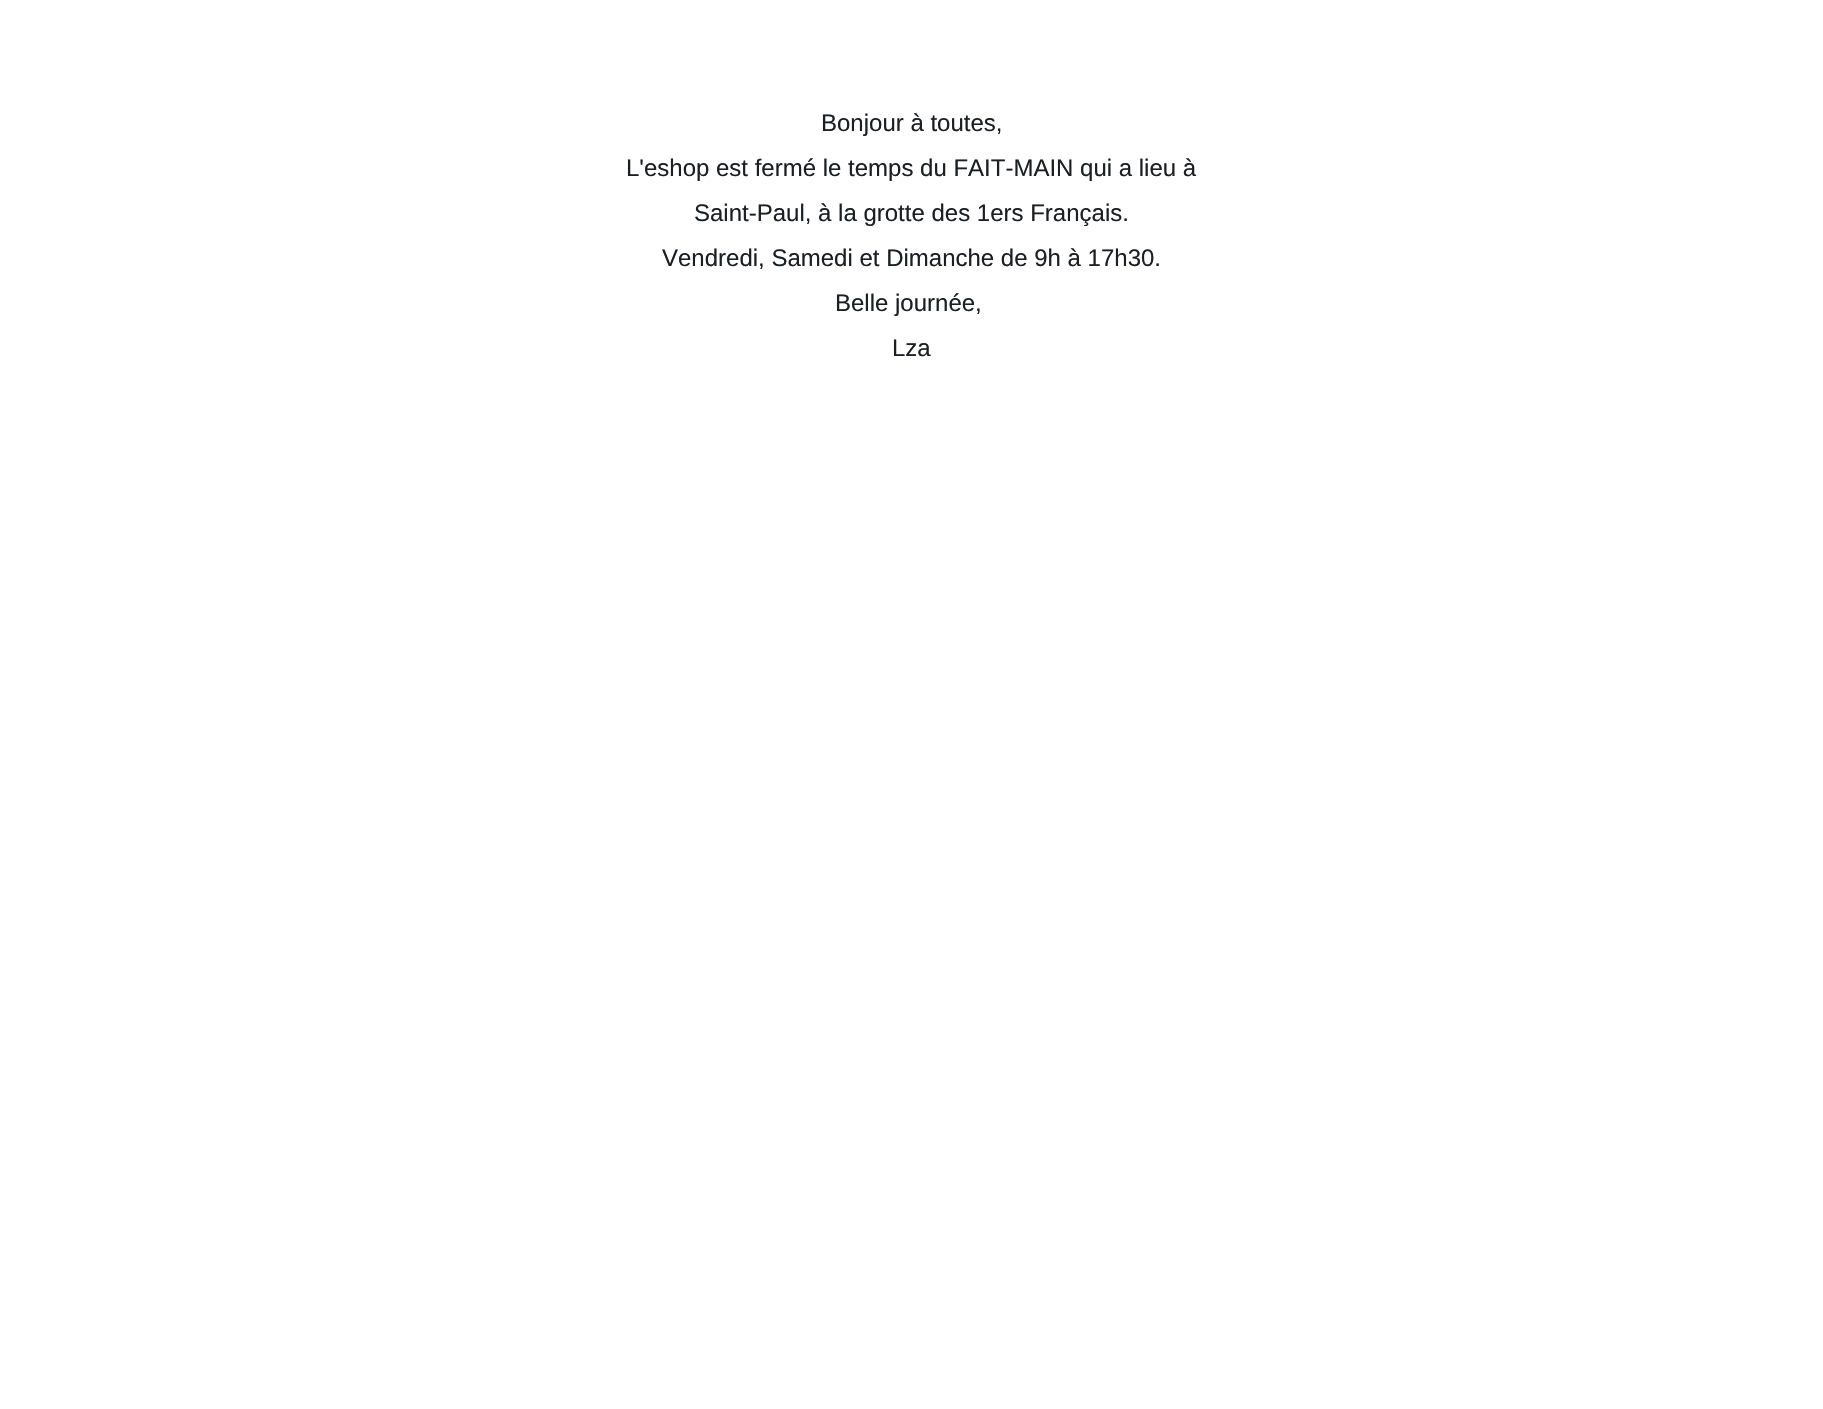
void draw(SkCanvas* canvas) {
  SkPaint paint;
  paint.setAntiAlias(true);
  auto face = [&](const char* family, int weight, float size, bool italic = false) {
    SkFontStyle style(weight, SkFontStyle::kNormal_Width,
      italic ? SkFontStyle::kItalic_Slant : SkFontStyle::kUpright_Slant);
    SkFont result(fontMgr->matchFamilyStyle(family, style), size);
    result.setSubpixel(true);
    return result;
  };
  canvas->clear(0xffffffff);
  auto f0 = face("Liberation Sans", 400, 24);
  paint.setColor(0xff1b1f23);
  {
    const struct { const char* s; float x, y; } items[] = {
      {"Bonjour à toutes,", 821, 131},
      {"L'eshop est fermé le temps du FAIT-MAIN qui a lieu à", 626, 176},
      {"Saint-Paul, à la grotte des 1ers Français.", 694, 221},
      {"Vendredi, Samedi et Dimanche de 9h à 17h30.", 662, 266},
      {"Belle journée,", 835, 311},
      {"Lza", 892, 356},
    };
    for (auto [s, x, y] : items) {
      canvas->drawString(s, x, y, f0, paint);
    }
  }
}
